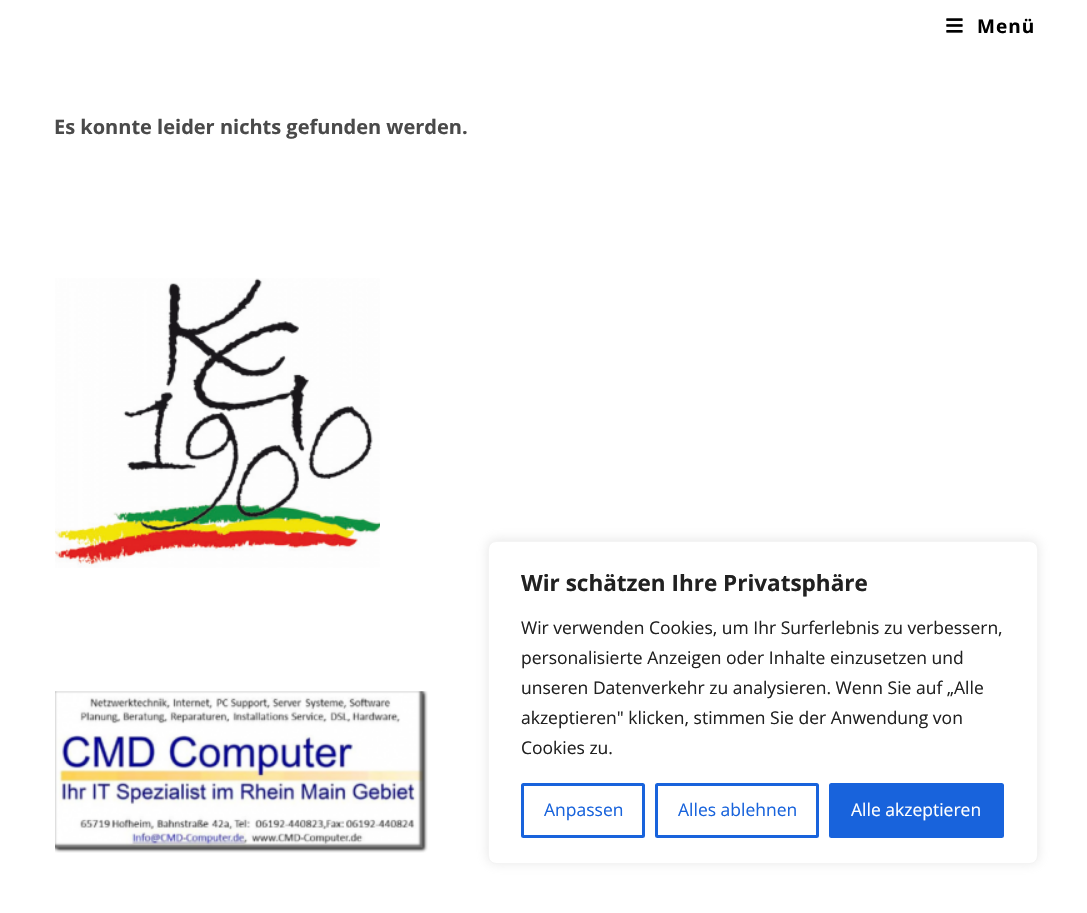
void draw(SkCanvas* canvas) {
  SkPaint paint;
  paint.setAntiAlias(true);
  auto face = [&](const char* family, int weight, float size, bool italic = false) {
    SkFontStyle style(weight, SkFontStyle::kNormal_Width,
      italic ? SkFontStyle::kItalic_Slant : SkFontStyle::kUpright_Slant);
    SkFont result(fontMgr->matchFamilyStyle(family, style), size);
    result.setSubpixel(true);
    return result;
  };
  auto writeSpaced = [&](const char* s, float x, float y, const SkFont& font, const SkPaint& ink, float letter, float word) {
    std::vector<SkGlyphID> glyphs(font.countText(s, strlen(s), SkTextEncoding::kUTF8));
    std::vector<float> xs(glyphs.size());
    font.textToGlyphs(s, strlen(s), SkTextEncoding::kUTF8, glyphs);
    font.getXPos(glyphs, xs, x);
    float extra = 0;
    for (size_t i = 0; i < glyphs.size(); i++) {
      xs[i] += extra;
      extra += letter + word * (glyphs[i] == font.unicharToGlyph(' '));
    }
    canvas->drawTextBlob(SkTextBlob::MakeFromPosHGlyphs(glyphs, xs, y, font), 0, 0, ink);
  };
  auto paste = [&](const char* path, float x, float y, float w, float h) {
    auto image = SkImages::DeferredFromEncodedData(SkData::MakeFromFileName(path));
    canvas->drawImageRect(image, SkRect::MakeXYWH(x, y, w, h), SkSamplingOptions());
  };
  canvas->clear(0xffffffff);
  paste("img/1.png", 946, 18, 17, 15);
  paste("img/2.png", 55, 278, 325, 290);
  paste("img/3.png", 55, 691, 373, 162);
  paint.setColor(0x4dacabab);
  paint.setMaskFilter(SkMaskFilter::MakeBlur(kNormal_SkBlurStyle, 6));
  canvas->drawRoundRect(SkRect::MakeXYWH(488, 540, 550, 323), 8, 8, paint);
  paint.setMaskFilter(nullptr);
  paint.setColor(0xffffffff);
  canvas->drawRoundRect(SkRect::MakeXYWH(488.5f, 541.5f, 549, 322), 7.5f, 7.5f, paint);
  paint.setStroke(true);
  paint.setStrokeWidth(1);
  paint.setColor(0xfff4f4f4);
  canvas->drawRoundRect(SkRect::MakeXYWH(488.5f, 541.5f, 549, 322), 7.5f, 7.5f, paint);
  paint.setStrokeWidth(3);
  paint.setColor(0xff1863dc);
  canvas->drawRoundRect(SkRect::MakeXYWH(522.5f, 784.5f, 121, 52), 1, 1, paint);
  canvas->drawRoundRect(SkRect::MakeXYWH(656.5f, 784.5f, 161, 52), 1, 1, paint);
  paint.setStroke(false);
  canvas->drawRoundRect(SkRect::MakeXYWH(830.5f, 784.5f, 172, 52), 1, 1, paint);
  paint.setStroke(true);
  canvas->drawRoundRect(SkRect::MakeXYWH(830.5f, 784.5f, 172, 52), 1, 1, paint);
  auto f0 = face("Open Sans", 700, 19);
  paint.setStroke(false);
  paint.setColor(0xff000000);
  writeSpaced("Menü", 977, 33, f0, paint, 1, 0);
  auto f1 = face("Open Sans", 700, 20);
  paint.setColor(0xff4a4a4a);
  canvas->drawString("Es konnte leider nichts gefunden werden.", 54, 134, f1, paint);
  auto f2 = face("Open Sans", 700, 22.5f);
  paint.setColor(0xff212121);
  canvas->drawString("Wir schätzen Ihre Privatsphäre", 521, 591, f2, paint);
  auto f3 = face("Open Sans", 400, 17.5f);
  {
    const struct { const char* s; float x, y; } items[] = {
      {"Wir verwenden Cookies, um Ihr Surferlebnis zu verbessern,", 521, 634},
      {"personalisierte Anzeigen oder Inhalte einzusetzen und", 521, 664},
      {"unseren Datenverkehr zu analysieren. Wenn Sie auf „Alle", 521, 694},
      {"akzeptieren\" klicken, stimmen Sie der Anwendung von", 521, 724},
      {"Cookies zu.", 521, 754},
    };
    for (auto [s, x, y] : items) {
      canvas->drawString(s, x, y, f3, paint);
    }
  }
  paint.setColor(0xff1863dc);
  canvas->drawString("Anpassen", 544, 816, f3, paint);
  canvas->drawString("Alles ablehnen", 678, 816, f3, paint);
  paint.setColor(0xffffffff);
  canvas->drawString("Alle akzeptieren", 851, 816, f3, paint);
}
